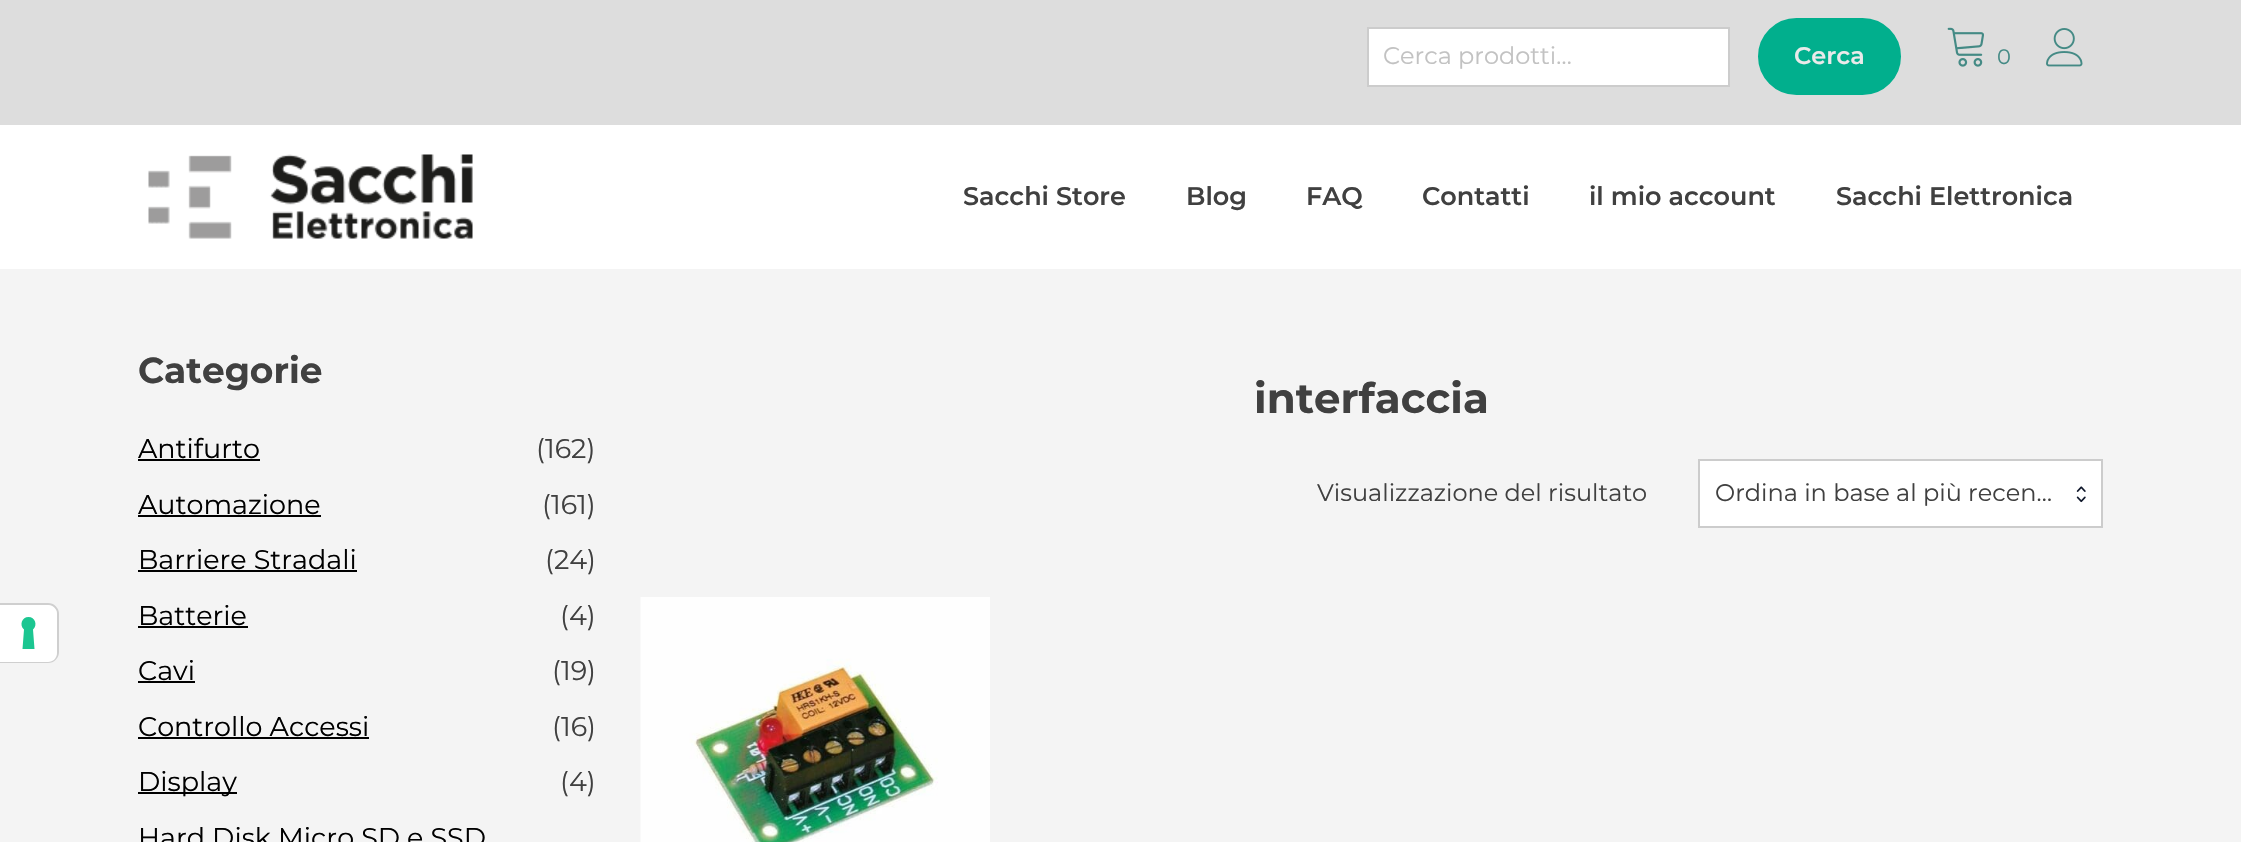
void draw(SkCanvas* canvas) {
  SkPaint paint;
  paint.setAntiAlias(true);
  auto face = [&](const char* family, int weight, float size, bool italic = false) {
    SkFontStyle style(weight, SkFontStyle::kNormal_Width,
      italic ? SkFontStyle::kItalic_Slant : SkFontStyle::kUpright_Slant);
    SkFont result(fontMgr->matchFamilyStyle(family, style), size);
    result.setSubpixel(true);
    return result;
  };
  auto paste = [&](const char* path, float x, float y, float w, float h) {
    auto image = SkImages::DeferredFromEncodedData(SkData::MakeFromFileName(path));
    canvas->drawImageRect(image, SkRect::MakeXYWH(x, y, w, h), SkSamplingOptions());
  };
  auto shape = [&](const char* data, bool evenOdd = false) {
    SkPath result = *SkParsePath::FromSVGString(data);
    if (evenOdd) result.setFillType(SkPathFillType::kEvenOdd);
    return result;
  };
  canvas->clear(0xfff4f4f4);
  paint.setStroke(true);
  paint.setStrokeWidth(2);
  paint.setColor(0xffcfcfcf);
  canvas->drawPath(shape("M0 604H48C53.5 604 58 608.5 58 614V652C58 657.5 53.5 662 48 662H0Z"), paint);
  paint.setStroke(false);
  paint.setColor(0xffffffff);
  canvas->drawPath(shape("M0 605H48C53 605 57 609 57 614V653C57 658 53 662 48 662H0Z"), paint);
  paint.setColor(0xff1cc691);
  canvas->drawPath(shape("M28.5 617C35 617 38 625 33 629.5L34.5 649H22.5L24 629.5C19 625 22 617 28.5 617Z", true), paint);
  paint.setColor(0xffffffff);
  canvas->drawRect(SkRect::MakeXYWH(0, 125, 2241, 144), paint);
  paint.setColor(0xffdddddd);
  canvas->drawRect(SkRect::MakeXYWH(0, 0, 2241, 125), paint);
  paint.setColor(0xffffffff);
  canvas->drawRect(SkRect::MakeXYWH(1368, 28, 361, 58), paint);
  paint.setStroke(true);
  paint.setColor(0xffcccccc);
  canvas->drawRect(SkRect::MakeXYWH(1368, 28, 361, 58), paint);
  paint.setStroke(false);
  paint.setColor(0xff01af8d);
  canvas->drawRoundRect(SkRect::MakeXYWH(1759, 19, 141, 75), 37.5f, 37.5f, paint);
  paint.setStroke(true);
  canvas->drawRoundRect(SkRect::MakeXYWH(1759, 19, 141, 75), 37.5f, 37.5f, paint);
  paste("img/1.png", 1947, 27, 37, 40);
  paste("img/2.png", 2046, 28, 37, 39);
  paste("img/3.png", 148, 154, 325, 85);
  paint.setStroke(false);
  {
    const struct { float x, y, w, h; SkColor color; } items[] = {
      {138, 459, 122, 2, 0xff000000},
      {138, 515, 183, 2, 0xff000000},
      {138, 570, 219, 2, 0xff000000},
      {138, 626, 110, 2, 0xff000000},
      {138, 681, 57, 2, 0xff000000},
      {138, 737, 231, 2, 0xff000000},
      {138, 792, 99, 2, 0xff000000},
    };
    for (auto [x, y, w, h, color] : items) {
      paint.setColor(color);
      canvas->drawRect(SkRect::MakeXYWH(x, y, w, h), paint);
    }
  }
  paint.setColor(0xffffffff);
  canvas->drawRect(SkRect::MakeXYWH(1699, 460, 403, 67), paint);
  paint.setStroke(true);
  paint.setColor(0xffcccccc);
  canvas->drawRect(SkRect::MakeXYWH(1699, 460, 403, 67), paint);
  paste("img/4.png", 2076, 486, 10, 17);
  paste("img/5.png", 640, 597, 350, 245);
  auto f0 = face("Montserrat", 400, 24);
  paint.setStroke(false);
  paint.setColor(0xffc2c2c2);
  canvas->drawString("Cerca prodotti…", 1383, 64, f0, paint);
  auto f1 = face("Montserrat", 600, 24);
  paint.setColor(0xffeaeaea);
  canvas->drawString("Cerca", 1794, 64, f1, paint);
  auto f2 = face("Montserrat", 400, 21);
  paint.setColor(0xff448a85);
  canvas->drawString("0", 1997, 64, f2, paint);
  auto f3 = face("Montserrat", 600, 25.5f);
  paint.setColor(0xff404040);
  {
    const struct { const char* s; float x, y; } items[] = {
      {"Sacchi Store", 963, 205},
      {"Blog", 1186, 205},
      {"FAQ", 1306, 205},
      {"Contatti", 1422, 205},
      {"il mio account", 1589, 205},
      {"Sacchi Elettronica", 1836, 205},
    };
    for (auto [s, x, y] : items) {
      canvas->drawString(s, x, y, f3, paint);
    }
  }
  auto f4 = face("Montserrat", 700, 36);
  canvas->drawString("Categorie", 138, 383, f4, paint);
  auto f5 = face("Montserrat", 400, 27);
  paint.setColor(0xff000000);
  canvas->drawString("Antifurto", 138, 458, f5, paint);
  paint.setColor(0xff404040);
  canvas->drawString("(162)", 536, 458, f5, paint);
  paint.setColor(0xff000000);
  canvas->drawString("Automazione", 138, 514, f5, paint);
  paint.setColor(0xff404040);
  canvas->drawString("(161)", 542, 514, f5, paint);
  paint.setColor(0xff000000);
  canvas->drawString("Barriere Stradali", 138, 569, f5, paint);
  paint.setColor(0xff404040);
  canvas->drawString("(24)", 545, 569, f5, paint);
  paint.setColor(0xff000000);
  canvas->drawString("Batterie", 138, 625, f5, paint);
  paint.setColor(0xff404040);
  canvas->drawString("(4)", 560, 625, f5, paint);
  paint.setColor(0xff000000);
  canvas->drawString("Cavi", 138, 680, f5, paint);
  paint.setColor(0xff404040);
  canvas->drawString("(19)", 552, 680, f5, paint);
  paint.setColor(0xff000000);
  canvas->drawString("Controllo Accessi", 138, 736, f5, paint);
  paint.setColor(0xff404040);
  canvas->drawString("(16)", 552, 736, f5, paint);
  paint.setColor(0xff000000);
  canvas->drawString("Display", 138, 791, f5, paint);
  paint.setColor(0xff404040);
  canvas->drawString("(4)", 560, 791, f5, paint);
  paint.setColor(0xff000000);
  canvas->drawString("Hard Disk Micro SD e SSD", 138, 847, f5, paint);
  auto f6 = face("Montserrat", 700, 42);
  paint.setColor(0xff404040);
  canvas->drawString("interfaccia", 1254, 413, f6, paint);
  canvas->drawString("Visualizzazione del risultato", 1317, 501, f0, paint);
  canvas->drawString("Ordina in base al più recen…", 1715, 501, f0, paint);
}
